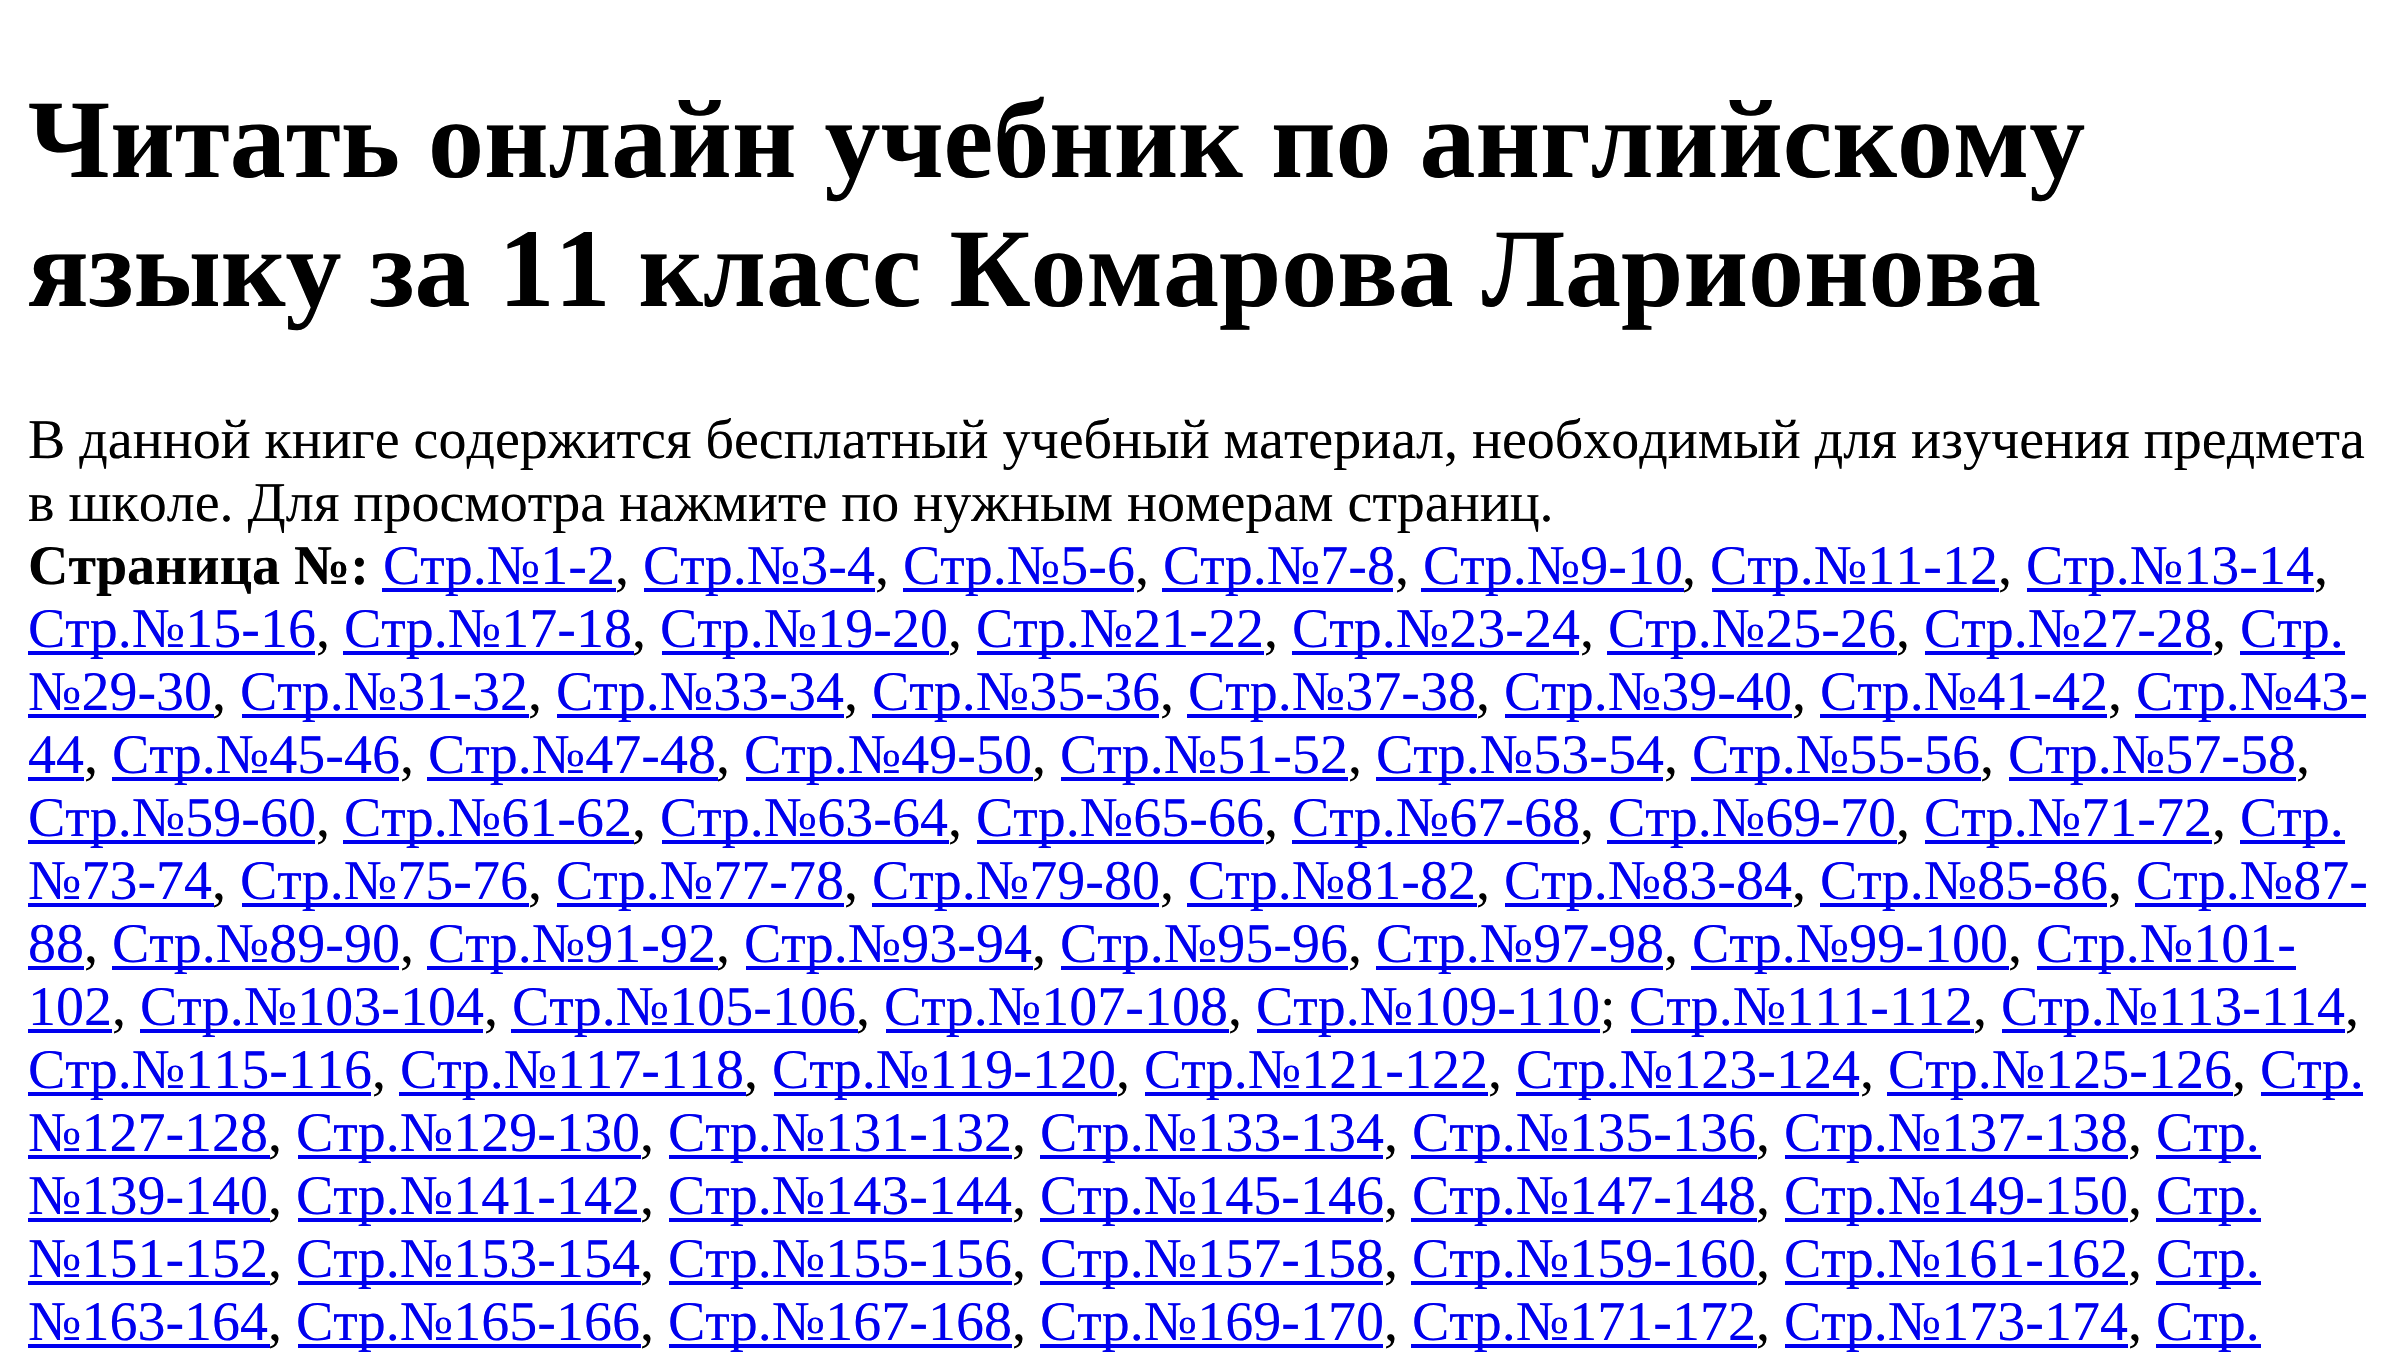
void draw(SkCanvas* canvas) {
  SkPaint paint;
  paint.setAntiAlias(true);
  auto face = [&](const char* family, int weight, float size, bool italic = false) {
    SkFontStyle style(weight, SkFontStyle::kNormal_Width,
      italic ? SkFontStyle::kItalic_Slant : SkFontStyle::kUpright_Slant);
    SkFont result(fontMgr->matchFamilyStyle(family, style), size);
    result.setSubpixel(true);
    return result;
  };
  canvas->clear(0xffffffff);
  {
    const struct { float x, y, w, h; SkColor color; } items[] = {
      {382, 588, 234, 4, 0xff0000ee},
      {644, 588, 231, 4, 0xff0000ee},
      {903, 588, 231, 4, 0xff0000ee},
      {1162, 588, 231, 4, 0xff0000ee},
      {1421, 588, 263, 4, 0xff0000ee},
      {1712, 588, 287, 4, 0xff0000ee},
      {2027, 588, 287, 4, 0xff0000ee},
      {28, 651, 287, 4, 0xff0000ee},
      {343, 651, 291, 4, 0xff0000ee},
      {662, 651, 287, 4, 0xff0000ee},
      {977, 651, 287, 4, 0xff0000ee},
      {1292, 651, 287, 4, 0xff0000ee},
      {1607, 651, 290, 4, 0xff0000ee},
      {1925, 651, 287, 4, 0xff0000ee},
      {2240, 651, 105, 4, 0xff0000ee},
      {28, 714, 186, 4, 0xff0000ee},
      {242, 714, 287, 4, 0xff0000ee},
      {557, 714, 287, 4, 0xff0000ee},
      {872, 714, 287, 4, 0xff0000ee},
      {1187, 714, 290, 4, 0xff0000ee},
      {1505, 714, 287, 4, 0xff0000ee},
      {1820, 714, 287, 4, 0xff0000ee},
      {2135, 714, 231, 4, 0xff0000ee},
      {28, 777, 56, 4, 0xff0000ee},
      {112, 777, 287, 4, 0xff0000ee},
      {427, 777, 291, 4, 0xff0000ee},
      {746, 777, 287, 4, 0xff0000ee},
      {1061, 777, 287, 4, 0xff0000ee},
      {1376, 777, 287, 4, 0xff0000ee},
      {1691, 777, 290, 4, 0xff0000ee},
      {2009, 777, 287, 4, 0xff0000ee},
      {28, 840, 287, 4, 0xff0000ee},
      {343, 840, 291, 4, 0xff0000ee},
      {662, 840, 287, 4, 0xff0000ee},
      {977, 840, 287, 4, 0xff0000ee},
      {1292, 840, 287, 4, 0xff0000ee},
      {1607, 840, 290, 4, 0xff0000ee},
      {1925, 840, 287, 4, 0xff0000ee},
      {2240, 840, 105, 4, 0xff0000ee},
      {28, 903, 186, 4, 0xff0000ee},
      {242, 903, 287, 4, 0xff0000ee},
      {557, 903, 287, 4, 0xff0000ee},
      {872, 903, 287, 4, 0xff0000ee},
      {1187, 903, 290, 4, 0xff0000ee},
      {1505, 903, 287, 4, 0xff0000ee},
      {1820, 903, 287, 4, 0xff0000ee},
      {2135, 903, 231, 4, 0xff0000ee},
      {28, 966, 56, 4, 0xff0000ee},
      {112, 966, 287, 4, 0xff0000ee},
      {427, 966, 291, 4, 0xff0000ee},
      {746, 966, 287, 4, 0xff0000ee},
      {1061, 966, 287, 4, 0xff0000ee},
      {1376, 966, 287, 4, 0xff0000ee},
      {1691, 966, 318, 4, 0xff0000ee},
      {2037, 966, 259, 4, 0xff0000ee},
      {28, 1029, 84, 4, 0xff0000ee},
      {140, 1029, 343, 4, 0xff0000ee},
      {511, 1029, 347, 4, 0xff0000ee},
      {886, 1029, 343, 4, 0xff0000ee},
      {1257, 1029, 343, 4, 0xff0000ee},
      {1631, 1029, 343, 4, 0xff0000ee},
      {2002, 1029, 343, 4, 0xff0000ee},
      {28, 1092, 343, 4, 0xff0000ee},
      {399, 1092, 347, 4, 0xff0000ee},
      {774, 1092, 343, 4, 0xff0000ee},
      {1145, 1092, 343, 4, 0xff0000ee},
      {1516, 1092, 343, 4, 0xff0000ee},
      {1887, 1092, 346, 4, 0xff0000ee},
      {2261, 1092, 102, 4, 0xff0000ee},
      {28, 1155, 242, 4, 0xff0000ee},
      {298, 1155, 343, 4, 0xff0000ee},
      {669, 1155, 343, 4, 0xff0000ee},
      {1040, 1155, 343, 4, 0xff0000ee},
      {1411, 1155, 346, 4, 0xff0000ee},
      {1785, 1155, 343, 4, 0xff0000ee},
      {2156, 1155, 105, 4, 0xff0000ee},
      {28, 1218, 242, 4, 0xff0000ee},
      {298, 1218, 343, 4, 0xff0000ee},
      {669, 1218, 343, 4, 0xff0000ee},
      {1040, 1218, 343, 4, 0xff0000ee},
      {1411, 1218, 346, 4, 0xff0000ee},
      {1785, 1218, 343, 4, 0xff0000ee},
      {2156, 1218, 105, 4, 0xff0000ee},
      {28, 1281, 242, 4, 0xff0000ee},
      {298, 1281, 343, 4, 0xff0000ee},
      {669, 1281, 343, 4, 0xff0000ee},
      {1040, 1281, 343, 4, 0xff0000ee},
      {1411, 1281, 346, 4, 0xff0000ee},
      {1785, 1281, 343, 4, 0xff0000ee},
      {2156, 1281, 105, 4, 0xff0000ee},
      {28, 1344, 242, 4, 0xff0000ee},
      {298, 1344, 343, 4, 0xff0000ee},
      {669, 1344, 343, 4, 0xff0000ee},
      {1040, 1344, 343, 4, 0xff0000ee},
      {1411, 1344, 346, 4, 0xff0000ee},
      {1785, 1344, 343, 4, 0xff0000ee},
      {2156, 1344, 105, 4, 0xff0000ee},
    };
    for (auto [x, y, w, h, color] : items) {
      paint.setColor(color);
      canvas->drawRect(SkRect::MakeXYWH(x, y, w, h), paint);
    }
  }
  auto f0 = face("Liberation Serif", 700, 112);
  paint.setColor(0xff000000);
  canvas->drawString("Читать онлайн учебник по английскому", 28, 177, f0, paint);
  canvas->drawString("языку за 11 класс Комарова Ларионова", 28, 306, f0, paint);
  auto f1 = face("Liberation Serif", 400, 56);
  canvas->drawString("В данной книге содержится бесплатный учебный материал, необходимый для изучения предмета", 28, 458, f1, paint);
  canvas->drawString("в школе. Для просмотра нажмите по нужным номерам страниц.", 28, 521, f1, paint);
  auto f2 = face("Liberation Serif", 700, 56);
  canvas->drawString("Страница №:", 28, 584, f2, paint);
  paint.setColor(0xff0000ee);
  canvas->drawString("Стр.№1-2", 383, 584, f1, paint);
  paint.setColor(0xff000000);
  canvas->drawString(",", 615, 584, f1, paint);
  paint.setColor(0xff0000ee);
  canvas->drawString("Стр.№3-4", 643, 584, f1, paint);
  paint.setColor(0xff000000);
  canvas->drawString(",", 875, 584, f1, paint);
  paint.setColor(0xff0000ee);
  canvas->drawString("Стр.№5-6", 903, 584, f1, paint);
  paint.setColor(0xff000000);
  canvas->drawString(",", 1135, 584, f1, paint);
  paint.setColor(0xff0000ee);
  canvas->drawString("Стр.№7-8", 1163, 584, f1, paint);
  paint.setColor(0xff000000);
  canvas->drawString(",", 1395, 584, f1, paint);
  paint.setColor(0xff0000ee);
  canvas->drawString("Стр.№9-10", 1423, 584, f1, paint);
  paint.setColor(0xff000000);
  canvas->drawString(",", 1682, 584, f1, paint);
  paint.setColor(0xff0000ee);
  canvas->drawString("Стр.№11-12", 1710, 584, f1, paint);
  paint.setColor(0xff000000);
  canvas->drawString(",", 1998, 584, f1, paint);
  paint.setColor(0xff0000ee);
  canvas->drawString("Стр.№13-14", 2026, 584, f1, paint);
  paint.setColor(0xff000000);
  canvas->drawString(",", 2314, 584, f1, paint);
  paint.setColor(0xff0000ee);
  canvas->drawString("Стр.№15-16", 28, 647, f1, paint);
  paint.setColor(0xff000000);
  canvas->drawString(",", 316, 647, f1, paint);
  paint.setColor(0xff0000ee);
  canvas->drawString("Стр.№17-18", 344, 647, f1, paint);
  paint.setColor(0xff000000);
  canvas->drawString(",", 632, 647, f1, paint);
  paint.setColor(0xff0000ee);
  canvas->drawString("Стр.№19-20", 660, 647, f1, paint);
  paint.setColor(0xff000000);
  canvas->drawString(",", 948, 647, f1, paint);
  paint.setColor(0xff0000ee);
  canvas->drawString("Стр.№21-22", 976, 647, f1, paint);
  paint.setColor(0xff000000);
  canvas->drawString(",", 1264, 647, f1, paint);
  paint.setColor(0xff0000ee);
  canvas->drawString("Стр.№23-24", 1292, 647, f1, paint);
  paint.setColor(0xff000000);
  canvas->drawString(",", 1580, 647, f1, paint);
  paint.setColor(0xff0000ee);
  canvas->drawString("Стр.№25-26", 1608, 647, f1, paint);
  paint.setColor(0xff000000);
  canvas->drawString(",", 1896, 647, f1, paint);
  paint.setColor(0xff0000ee);
  canvas->drawString("Стр.№27-28", 1924, 647, f1, paint);
  paint.setColor(0xff000000);
  canvas->drawString(",", 2212, 647, f1, paint);
  paint.setColor(0xff0000ee);
  canvas->drawString("Стр.", 2240, 647, f1, paint);
  canvas->drawString("№29-30", 28, 710, f1, paint);
  paint.setColor(0xff000000);
  canvas->drawString(",", 212, 710, f1, paint);
  paint.setColor(0xff0000ee);
  canvas->drawString("Стр.№31-32", 240, 710, f1, paint);
  paint.setColor(0xff000000);
  canvas->drawString(",", 528, 710, f1, paint);
  paint.setColor(0xff0000ee);
  canvas->drawString("Стр.№33-34", 556, 710, f1, paint);
  paint.setColor(0xff000000);
  canvas->drawString(",", 844, 710, f1, paint);
  paint.setColor(0xff0000ee);
  canvas->drawString("Стр.№35-36", 872, 710, f1, paint);
  paint.setColor(0xff000000);
  canvas->drawString(",", 1160, 710, f1, paint);
  paint.setColor(0xff0000ee);
  canvas->drawString("Стр.№37-38", 1188, 710, f1, paint);
  paint.setColor(0xff000000);
  canvas->drawString(",", 1476, 710, f1, paint);
  paint.setColor(0xff0000ee);
  canvas->drawString("Стр.№39-40", 1504, 710, f1, paint);
  paint.setColor(0xff000000);
  canvas->drawString(",", 1792, 710, f1, paint);
  paint.setColor(0xff0000ee);
  canvas->drawString("Стр.№41-42", 1820, 710, f1, paint);
  paint.setColor(0xff000000);
  canvas->drawString(",", 2108, 710, f1, paint);
  paint.setColor(0xff0000ee);
  {
    const struct { const char* s; float x, y; } items[] = {
      {"Стр.№43-", 2136, 710},
      {"44", 28, 773},
      {"Стр.№45-46", 112, 773},
      {"Стр.№47-48", 428, 773},
      {"Стр.№49-50", 744, 773},
      {"Стр.№51-52", 1060, 773},
      {"Стр.№53-54", 1376, 773},
      {"Стр.№55-56", 1692, 773},
      {"Стр.№57-58", 2008, 773},
    };
    for (auto [s, x, y] : items) {
      canvas->drawString(s, x, y, f1, paint);
    }
  }
  paint.setColor(0xff000000);
  {
    const struct { const char* s; float x, y; } items[] = {
      {",", 84, 773},
      {",", 400, 773},
      {",", 716, 773},
      {",", 1032, 773},
      {",", 1348, 773},
      {",", 1664, 773},
      {",", 1980, 773},
      {",", 2296, 773},
    };
    for (auto [s, x, y] : items) {
      canvas->drawString(s, x, y, f1, paint);
    }
  }
  paint.setColor(0xff0000ee);
  canvas->drawString("Стр.№59-60", 28, 836, f1, paint);
  paint.setColor(0xff000000);
  canvas->drawString(",", 316, 836, f1, paint);
  paint.setColor(0xff0000ee);
  canvas->drawString("Стр.№61-62", 344, 836, f1, paint);
  paint.setColor(0xff000000);
  canvas->drawString(",", 632, 836, f1, paint);
  paint.setColor(0xff0000ee);
  canvas->drawString("Стр.№63-64", 660, 836, f1, paint);
  paint.setColor(0xff000000);
  canvas->drawString(",", 948, 836, f1, paint);
  paint.setColor(0xff0000ee);
  canvas->drawString("Стр.№65-66", 976, 836, f1, paint);
  paint.setColor(0xff000000);
  canvas->drawString(",", 1264, 836, f1, paint);
  paint.setColor(0xff0000ee);
  canvas->drawString("Стр.№67-68", 1292, 836, f1, paint);
  paint.setColor(0xff000000);
  canvas->drawString(",", 1580, 836, f1, paint);
  paint.setColor(0xff0000ee);
  canvas->drawString("Стр.№69-70", 1608, 836, f1, paint);
  paint.setColor(0xff000000);
  canvas->drawString(",", 1896, 836, f1, paint);
  paint.setColor(0xff0000ee);
  canvas->drawString("Стр.№71-72", 1924, 836, f1, paint);
  paint.setColor(0xff000000);
  canvas->drawString(",", 2212, 836, f1, paint);
  paint.setColor(0xff0000ee);
  canvas->drawString("Стр.", 2240, 836, f1, paint);
  canvas->drawString("№73-74", 28, 899, f1, paint);
  paint.setColor(0xff000000);
  canvas->drawString(",", 212, 899, f1, paint);
  paint.setColor(0xff0000ee);
  canvas->drawString("Стр.№75-76", 240, 899, f1, paint);
  paint.setColor(0xff000000);
  canvas->drawString(",", 528, 899, f1, paint);
  paint.setColor(0xff0000ee);
  canvas->drawString("Стр.№77-78", 556, 899, f1, paint);
  paint.setColor(0xff000000);
  canvas->drawString(",", 844, 899, f1, paint);
  paint.setColor(0xff0000ee);
  canvas->drawString("Стр.№79-80", 872, 899, f1, paint);
  paint.setColor(0xff000000);
  canvas->drawString(",", 1160, 899, f1, paint);
  paint.setColor(0xff0000ee);
  canvas->drawString("Стр.№81-82", 1188, 899, f1, paint);
  paint.setColor(0xff000000);
  canvas->drawString(",", 1476, 899, f1, paint);
  paint.setColor(0xff0000ee);
  canvas->drawString("Стр.№83-84", 1504, 899, f1, paint);
  paint.setColor(0xff000000);
  canvas->drawString(",", 1792, 899, f1, paint);
  paint.setColor(0xff0000ee);
  canvas->drawString("Стр.№85-86", 1820, 899, f1, paint);
  paint.setColor(0xff000000);
  canvas->drawString(",", 2108, 899, f1, paint);
  paint.setColor(0xff0000ee);
  canvas->drawString("Стр.№87-", 2136, 899, f1, paint);
  canvas->drawString("88", 28, 962, f1, paint);
  paint.setColor(0xff000000);
  canvas->drawString(",", 84, 962, f1, paint);
  paint.setColor(0xff0000ee);
  canvas->drawString("Стр.№89-90", 112, 962, f1, paint);
  paint.setColor(0xff000000);
  canvas->drawString(",", 400, 962, f1, paint);
  paint.setColor(0xff0000ee);
  canvas->drawString("Стр.№91-92", 428, 962, f1, paint);
  paint.setColor(0xff000000);
  canvas->drawString(",", 716, 962, f1, paint);
  paint.setColor(0xff0000ee);
  canvas->drawString("Стр.№93-94", 744, 962, f1, paint);
  paint.setColor(0xff000000);
  canvas->drawString(",", 1032, 962, f1, paint);
  paint.setColor(0xff0000ee);
  canvas->drawString("Стр.№95-96", 1060, 962, f1, paint);
  paint.setColor(0xff000000);
  canvas->drawString(",", 1348, 962, f1, paint);
  paint.setColor(0xff0000ee);
  canvas->drawString("Стр.№97-98", 1376, 962, f1, paint);
  paint.setColor(0xff000000);
  canvas->drawString(",", 1664, 962, f1, paint);
  paint.setColor(0xff0000ee);
  canvas->drawString("Стр.№99-100", 1692, 962, f1, paint);
  paint.setColor(0xff000000);
  canvas->drawString(",", 2008, 962, f1, paint);
  paint.setColor(0xff0000ee);
  canvas->drawString("Стр.№101-", 2036, 962, f1, paint);
  canvas->drawString("102", 28, 1025, f1, paint);
  paint.setColor(0xff000000);
  canvas->drawString(",", 112, 1025, f1, paint);
  paint.setColor(0xff0000ee);
  canvas->drawString("Стр.№103-104", 140, 1025, f1, paint);
  paint.setColor(0xff000000);
  canvas->drawString(",", 484, 1025, f1, paint);
  paint.setColor(0xff0000ee);
  canvas->drawString("Стр.№105-106", 512, 1025, f1, paint);
  paint.setColor(0xff000000);
  canvas->drawString(",", 856, 1025, f1, paint);
  paint.setColor(0xff0000ee);
  canvas->drawString("Стр.№107-108", 884, 1025, f1, paint);
  paint.setColor(0xff000000);
  canvas->drawString(",", 1228, 1025, f1, paint);
  paint.setColor(0xff0000ee);
  canvas->drawString("Стр.№109-110", 1256, 1025, f1, paint);
  paint.setColor(0xff000000);
  canvas->drawString(";", 1600, 1025, f1, paint);
  paint.setColor(0xff0000ee);
  canvas->drawString("Стр.№111-112", 1629, 1025, f1, paint);
  paint.setColor(0xff000000);
  canvas->drawString(",", 1973, 1025, f1, paint);
  paint.setColor(0xff0000ee);
  canvas->drawString("Стр.№113-114", 2001, 1025, f1, paint);
  paint.setColor(0xff000000);
  canvas->drawString(",", 2345, 1025, f1, paint);
  paint.setColor(0xff0000ee);
  canvas->drawString("Стр.№115-116", 28, 1088, f1, paint);
  paint.setColor(0xff000000);
  canvas->drawString(",", 372, 1088, f1, paint);
  paint.setColor(0xff0000ee);
  canvas->drawString("Стр.№117-118", 400, 1088, f1, paint);
  paint.setColor(0xff000000);
  canvas->drawString(",", 744, 1088, f1, paint);
  paint.setColor(0xff0000ee);
  canvas->drawString("Стр.№119-120", 772, 1088, f1, paint);
  paint.setColor(0xff000000);
  canvas->drawString(",", 1116, 1088, f1, paint);
  paint.setColor(0xff0000ee);
  canvas->drawString("Стр.№121-122", 1144, 1088, f1, paint);
  paint.setColor(0xff000000);
  canvas->drawString(",", 1488, 1088, f1, paint);
  paint.setColor(0xff0000ee);
  canvas->drawString("Стр.№123-124", 1516, 1088, f1, paint);
  paint.setColor(0xff000000);
  canvas->drawString(",", 1860, 1088, f1, paint);
  paint.setColor(0xff0000ee);
  canvas->drawString("Стр.№125-126", 1888, 1088, f1, paint);
  paint.setColor(0xff000000);
  canvas->drawString(",", 2232, 1088, f1, paint);
  paint.setColor(0xff0000ee);
  canvas->drawString("Стр.", 2260, 1088, f1, paint);
  canvas->drawString("№127-128", 28, 1151, f1, paint);
  paint.setColor(0xff000000);
  canvas->drawString(",", 268, 1151, f1, paint);
  paint.setColor(0xff0000ee);
  canvas->drawString("Стр.№129-130", 296, 1151, f1, paint);
  paint.setColor(0xff000000);
  canvas->drawString(",", 640, 1151, f1, paint);
  paint.setColor(0xff0000ee);
  canvas->drawString("Стр.№131-132", 668, 1151, f1, paint);
  paint.setColor(0xff000000);
  canvas->drawString(",", 1012, 1151, f1, paint);
  paint.setColor(0xff0000ee);
  canvas->drawString("Стр.№133-134", 1040, 1151, f1, paint);
  paint.setColor(0xff000000);
  canvas->drawString(",", 1384, 1151, f1, paint);
  paint.setColor(0xff0000ee);
  canvas->drawString("Стр.№135-136", 1412, 1151, f1, paint);
  paint.setColor(0xff000000);
  canvas->drawString(",", 1756, 1151, f1, paint);
  paint.setColor(0xff0000ee);
  canvas->drawString("Стр.№137-138", 1784, 1151, f1, paint);
  paint.setColor(0xff000000);
  canvas->drawString(",", 2128, 1151, f1, paint);
  paint.setColor(0xff0000ee);
  canvas->drawString("Стр.", 2156, 1151, f1, paint);
  canvas->drawString("№139-140", 28, 1214, f1, paint);
  paint.setColor(0xff000000);
  canvas->drawString(",", 268, 1214, f1, paint);
  paint.setColor(0xff0000ee);
  canvas->drawString("Стр.№141-142", 296, 1214, f1, paint);
  paint.setColor(0xff000000);
  canvas->drawString(",", 640, 1214, f1, paint);
  paint.setColor(0xff0000ee);
  canvas->drawString("Стр.№143-144", 668, 1214, f1, paint);
  paint.setColor(0xff000000);
  canvas->drawString(",", 1012, 1214, f1, paint);
  paint.setColor(0xff0000ee);
  canvas->drawString("Стр.№145-146", 1040, 1214, f1, paint);
  paint.setColor(0xff000000);
  canvas->drawString(",", 1384, 1214, f1, paint);
  paint.setColor(0xff0000ee);
  canvas->drawString("Стр.№147-148", 1412, 1214, f1, paint);
  paint.setColor(0xff000000);
  canvas->drawString(",", 1756, 1214, f1, paint);
  paint.setColor(0xff0000ee);
  canvas->drawString("Стр.№149-150", 1784, 1214, f1, paint);
  paint.setColor(0xff000000);
  canvas->drawString(",", 2128, 1214, f1, paint);
  paint.setColor(0xff0000ee);
  canvas->drawString("Стр.", 2156, 1214, f1, paint);
  canvas->drawString("№151-152", 28, 1277, f1, paint);
  paint.setColor(0xff000000);
  canvas->drawString(",", 268, 1277, f1, paint);
  paint.setColor(0xff0000ee);
  canvas->drawString("Стр.№153-154", 296, 1277, f1, paint);
  paint.setColor(0xff000000);
  canvas->drawString(",", 640, 1277, f1, paint);
  paint.setColor(0xff0000ee);
  canvas->drawString("Стр.№155-156", 668, 1277, f1, paint);
  paint.setColor(0xff000000);
  canvas->drawString(",", 1012, 1277, f1, paint);
  paint.setColor(0xff0000ee);
  canvas->drawString("Стр.№157-158", 1040, 1277, f1, paint);
  paint.setColor(0xff000000);
  canvas->drawString(",", 1384, 1277, f1, paint);
  paint.setColor(0xff0000ee);
  canvas->drawString("Стр.№159-160", 1412, 1277, f1, paint);
  paint.setColor(0xff000000);
  canvas->drawString(",", 1756, 1277, f1, paint);
  paint.setColor(0xff0000ee);
  canvas->drawString("Стр.№161-162", 1784, 1277, f1, paint);
  paint.setColor(0xff000000);
  canvas->drawString(",", 2128, 1277, f1, paint);
  paint.setColor(0xff0000ee);
  canvas->drawString("Стр.", 2156, 1277, f1, paint);
  canvas->drawString("№163-164", 28, 1340, f1, paint);
  paint.setColor(0xff000000);
  canvas->drawString(",", 268, 1340, f1, paint);
  paint.setColor(0xff0000ee);
  canvas->drawString("Стр.№165-166", 296, 1340, f1, paint);
  paint.setColor(0xff000000);
  canvas->drawString(",", 640, 1340, f1, paint);
  paint.setColor(0xff0000ee);
  canvas->drawString("Стр.№167-168", 668, 1340, f1, paint);
  paint.setColor(0xff000000);
  canvas->drawString(",", 1012, 1340, f1, paint);
  paint.setColor(0xff0000ee);
  canvas->drawString("Стр.№169-170", 1040, 1340, f1, paint);
  paint.setColor(0xff000000);
  canvas->drawString(",", 1384, 1340, f1, paint);
  paint.setColor(0xff0000ee);
  canvas->drawString("Стр.№171-172", 1412, 1340, f1, paint);
  paint.setColor(0xff000000);
  canvas->drawString(",", 1756, 1340, f1, paint);
  paint.setColor(0xff0000ee);
  canvas->drawString("Стр.№173-174", 1784, 1340, f1, paint);
  paint.setColor(0xff000000);
  canvas->drawString(",", 2128, 1340, f1, paint);
  paint.setColor(0xff0000ee);
  canvas->drawString("Стр.", 2156, 1340, f1, paint);
}
